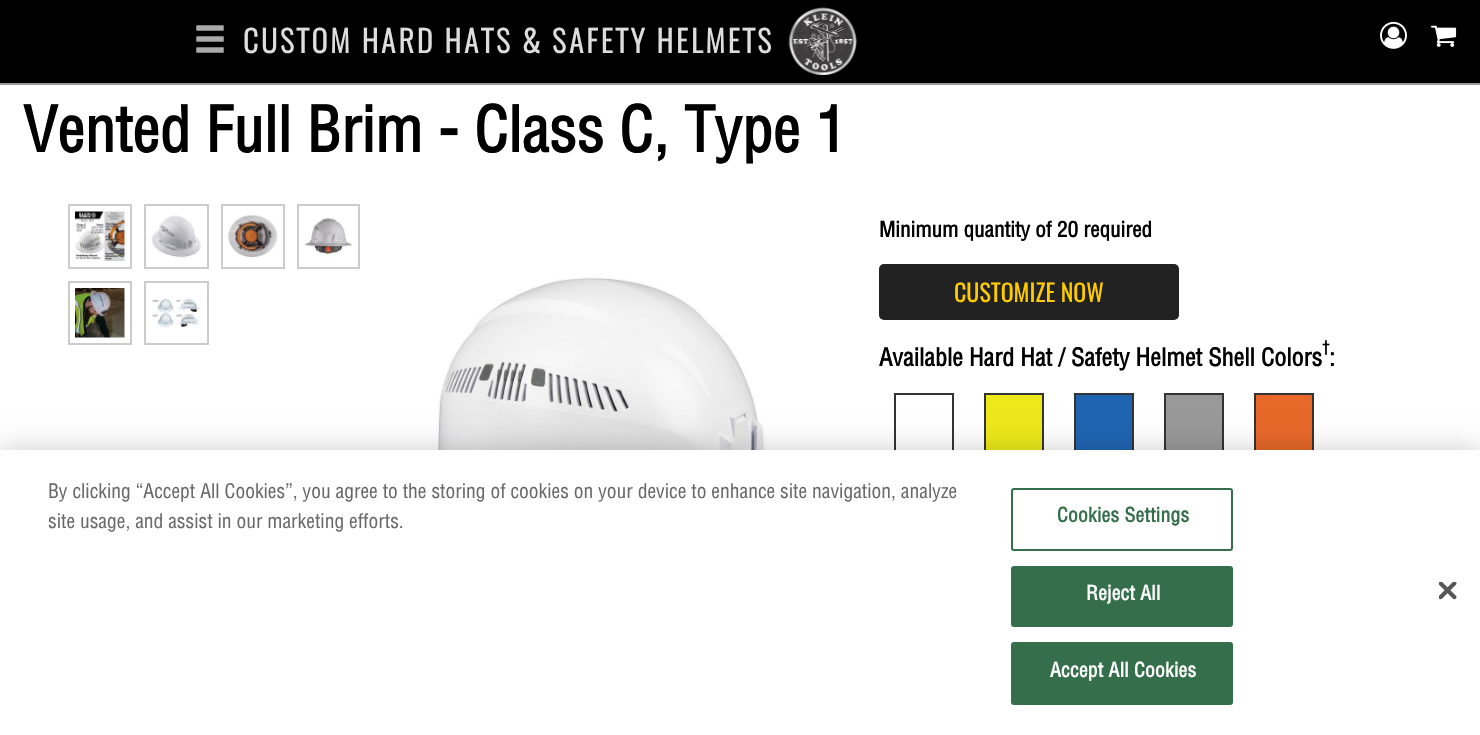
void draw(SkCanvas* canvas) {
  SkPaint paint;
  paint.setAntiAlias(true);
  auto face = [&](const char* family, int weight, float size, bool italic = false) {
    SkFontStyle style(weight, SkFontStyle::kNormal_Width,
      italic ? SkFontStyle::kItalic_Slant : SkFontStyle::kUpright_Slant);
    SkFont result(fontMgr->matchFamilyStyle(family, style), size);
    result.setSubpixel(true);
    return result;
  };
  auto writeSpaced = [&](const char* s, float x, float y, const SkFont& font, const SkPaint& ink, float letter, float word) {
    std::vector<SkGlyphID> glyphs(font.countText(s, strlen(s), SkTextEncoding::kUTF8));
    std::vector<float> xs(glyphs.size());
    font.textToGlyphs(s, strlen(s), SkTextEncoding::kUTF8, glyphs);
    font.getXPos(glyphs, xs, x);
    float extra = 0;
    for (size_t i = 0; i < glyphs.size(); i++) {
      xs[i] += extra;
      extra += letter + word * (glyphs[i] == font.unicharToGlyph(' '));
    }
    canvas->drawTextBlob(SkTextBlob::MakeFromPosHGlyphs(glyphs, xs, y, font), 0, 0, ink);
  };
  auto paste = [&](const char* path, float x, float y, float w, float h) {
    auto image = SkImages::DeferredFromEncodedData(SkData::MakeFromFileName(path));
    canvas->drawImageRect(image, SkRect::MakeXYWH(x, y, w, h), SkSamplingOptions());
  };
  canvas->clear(0xffffffff);
  paint.setColor(0xff000000);
  canvas->drawRect(SkRect::MakeXYWH(0, 0, 1480, 83), paint);
  paste("img/1.png", 196, 25, 28, 28);
  paste("img/2.png", 788, 7, 69, 68);
  paint.setColor(0xff999999);
  canvas->drawRect(SkRect::MakeXYWH(0, 83, 1480, 2), paint);
  paste("img/3.png", 1380, 21, 27, 28);
  paste("img/4.png", 1431, 25, 26, 22);
  paint.setStroke(true);
  paint.setStrokeWidth(2);
  paint.setColor(0xffcccccc);
  canvas->drawRect(SkRect::MakeXYWH(69, 205, 62, 63), paint);
  paste("img/5.png", 75, 211, 50, 50);
  canvas->drawRect(SkRect::MakeXYWH(145, 205, 63, 63), paint);
  paste("img/6.png", 151, 215, 50, 44);
  canvas->drawRect(SkRect::MakeXYWH(222, 205, 62, 63), paint);
  paste("img/7.png", 228, 215, 50, 43);
  canvas->drawRect(SkRect::MakeXYWH(298, 205, 61, 63), paint);
  paste("img/8.png", 304, 218, 49, 41);
  canvas->drawRect(SkRect::MakeXYWH(69, 282, 62, 62), paint);
  paste("img/9.png", 75, 288, 50, 50);
  canvas->drawRect(SkRect::MakeXYWH(145, 282, 63, 62), paint);
  paste("img/10.png", 152, 298, 48, 30);
  paste("img/11.png", 387, 276, 447, 174);
  paint.setStroke(false);
  paint.setColor(0xff222222);
  canvas->drawRoundRect(SkRect::MakeXYWH(879, 264, 300, 56), 5, 5, paint);
  paint.setStroke(true);
  paint.setColor(0xff333333);
  canvas->drawRect(SkRect::MakeXYWH(895, 394, 58, 58), paint);
  paint.setStroke(false);
  paint.setColor(0xffece81a);
  canvas->drawRect(SkRect::MakeXYWH(986, 395, 56, 55), paint);
  paint.setStroke(true);
  paint.setColor(0xff333333);
  canvas->drawRect(SkRect::MakeXYWH(985, 394, 58, 58), paint);
  paint.setStroke(false);
  paint.setColor(0xff1f64b1);
  canvas->drawRect(SkRect::MakeXYWH(1076, 395, 56, 55), paint);
  paint.setStroke(true);
  paint.setColor(0xff333333);
  canvas->drawRect(SkRect::MakeXYWH(1075, 394, 58, 58), paint);
  paint.setStroke(false);
  paint.setColor(0xff999999);
  canvas->drawRect(SkRect::MakeXYWH(1166, 395, 56, 55), paint);
  paint.setStroke(true);
  paint.setColor(0xff333333);
  canvas->drawRect(SkRect::MakeXYWH(1165, 394, 58, 58), paint);
  paint.setStroke(false);
  paint.setColor(0xffe76829);
  canvas->drawRect(SkRect::MakeXYWH(1256, 395, 56, 55), paint);
  paint.setStroke(true);
  paint.setColor(0xff333333);
  canvas->drawRect(SkRect::MakeXYWH(1255, 394, 58, 58), paint);
  paint.setStroke(false);
  paint.setColor(0x33000000);
  paint.setMaskFilter(SkMaskFilter::MakeBlur(kNormal_SkBlurStyle, 13.5f));
  canvas->drawRect(SkRect::MakeXYWH(0, 450, 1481, 285), paint);
  paint.setMaskFilter(nullptr);
  paint.setColor(0xffffffff);
  canvas->drawRect(SkRect::MakeXYWH(0, 450, 1480, 285), paint);
  paint.setStroke(true);
  paint.setColor(0xff346e4a);
  canvas->drawRoundRect(SkRect::MakeXYWH(1012, 489, 220, 61), 2, 2, paint);
  paint.setStroke(false);
  canvas->drawRoundRect(SkRect::MakeXYWH(1012, 567, 220, 59), 2, 2, paint);
  paint.setStroke(true);
  canvas->drawRoundRect(SkRect::MakeXYWH(1012, 567, 220, 59), 2, 2, paint);
  paint.setStroke(false);
  canvas->drawRoundRect(SkRect::MakeXYWH(1012, 643, 220, 61), 2, 2, paint);
  paint.setStroke(true);
  canvas->drawRoundRect(SkRect::MakeXYWH(1012, 643, 220, 61), 2, 2, paint);
  paste("img/12.png", 1439, 582, 18, 18);
  auto f0 = face("Oswald", 700, 30);
  paint.setStroke(false);
  paint.setColor(0xffdddddd);
  writeSpaced("CUSTOM HARD HATS & SAFETY HELMETS", 243, 53, f0, paint, 3, 0);
  auto f1 = face("Helvetica", 700, 61.5f);
  paint.setColor(0xff000000);
  canvas->drawString("Vented Full Brim - Class C, Type 1", 23, 152, f1, paint);
  auto f2 = face("Helvetica", 700, 21);
  canvas->drawString("Minimum quantity of 20 required", 879, 237, f2, paint);
  auto f3 = face("Oswald", 400, 24);
  paint.setColor(0xfffecb00);
  canvas->drawString("CUSTOMIZE NOW", 954, 302, f3, paint);
  auto f4 = face("Helvetica", 700, 24);
  paint.setColor(0xff000000);
  canvas->drawString("Available Hard Hat / Safety Helmet Shell Colors", 879, 366, f4, paint);
  auto f5 = face("Helvetica", 700, 15);
  canvas->drawString("†", 1322, 352, f5, paint);
  canvas->drawString(":", 1329, 366, f4, paint);
  auto f6 = face("Helvetica", 400, 19.5f);
  paint.setColor(0xff696969);
  canvas->drawString("By clicking “Accept All Cookies”, you agree to the storing of cookies on your device to enhance site navigation, analyze", 48, 498, f6, paint);
  canvas->drawString("site usage, and assist in our marketing efforts.", 48, 528, f6, paint);
  auto f7 = face("Helvetica", 700, 19.5f);
  paint.setColor(0xff346e4a);
  writeSpaced("Cookies Settings", 1057, 522, f7, paint, 0.25f, 0);
  paint.setColor(0xffffffff);
  writeSpaced("Reject All", 1086, 600, f7, paint, 0.25f, 0);
  writeSpaced("Accept All Cookies", 1050, 677, f7, paint, 0.25f, 0);
}
